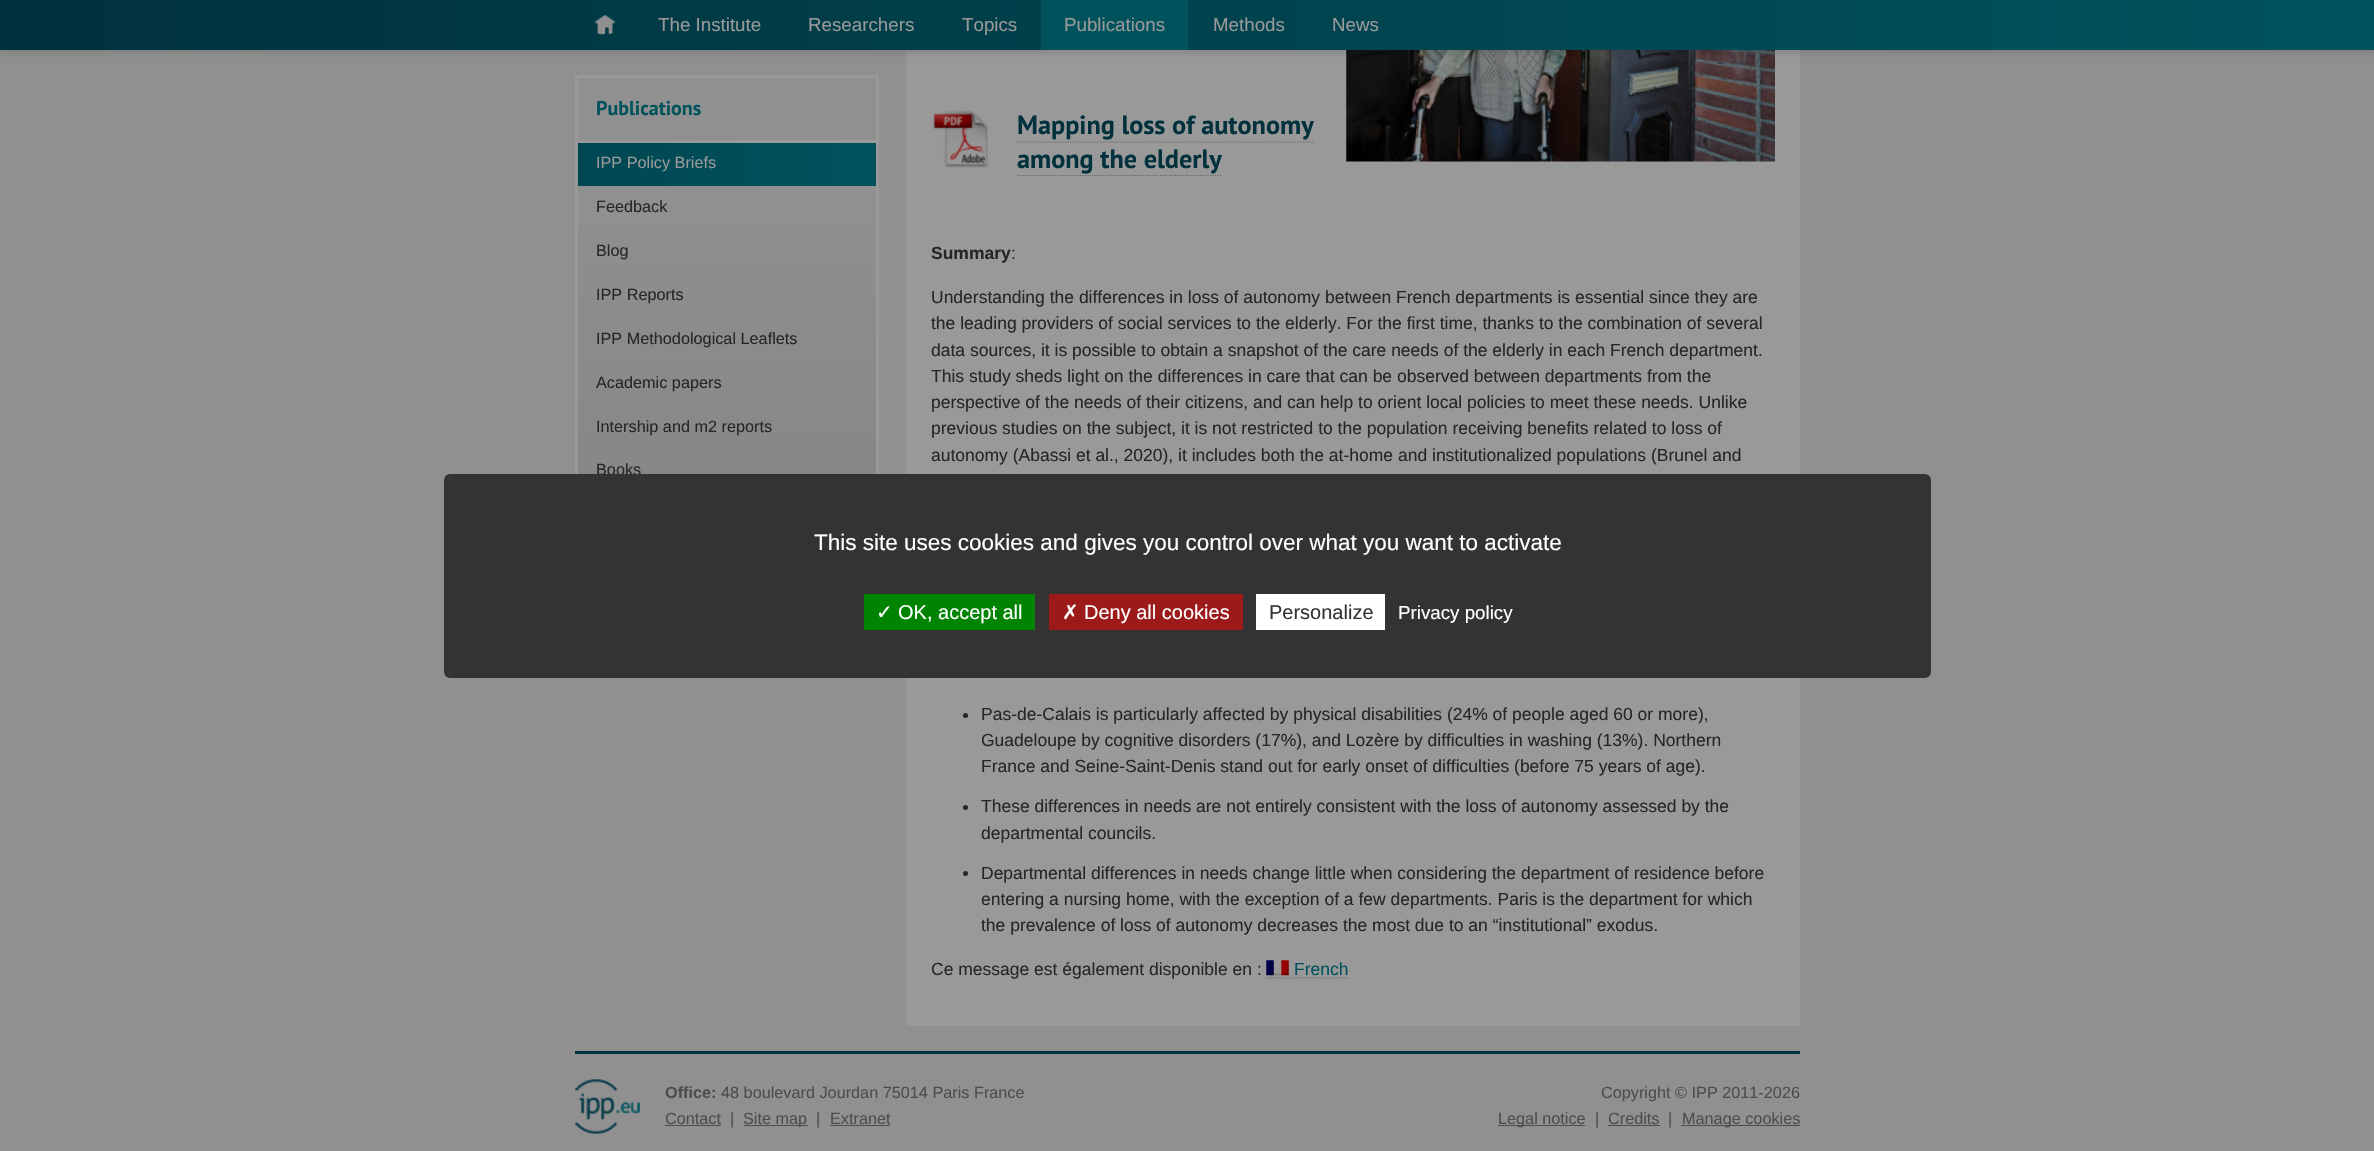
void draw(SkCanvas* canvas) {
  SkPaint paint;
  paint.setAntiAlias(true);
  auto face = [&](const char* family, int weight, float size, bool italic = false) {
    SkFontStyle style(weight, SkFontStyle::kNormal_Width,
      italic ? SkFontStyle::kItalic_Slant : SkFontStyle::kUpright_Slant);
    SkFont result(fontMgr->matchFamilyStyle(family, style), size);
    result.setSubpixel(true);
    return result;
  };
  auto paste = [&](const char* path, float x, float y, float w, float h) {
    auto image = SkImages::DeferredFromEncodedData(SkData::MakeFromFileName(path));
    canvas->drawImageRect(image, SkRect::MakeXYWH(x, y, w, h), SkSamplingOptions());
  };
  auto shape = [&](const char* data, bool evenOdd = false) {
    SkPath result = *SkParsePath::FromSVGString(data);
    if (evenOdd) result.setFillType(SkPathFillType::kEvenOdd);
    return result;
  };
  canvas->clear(0xff919091);
  paint.setColor(0xff999999);
  canvas->drawRect(SkRect::MakeXYWH(906, 50, 894, 976), paint);
  paste("img/3.png", 1346, 50, 429, 112);
  paint.setColor(0x1a000000);
  paint.setMaskFilter(SkMaskFilter::MakeBlur(kNormal_SkBlurStyle, 3));
  canvas->drawRect(SkRect::MakeXYWH(-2, -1, 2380, 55), paint);
  paint.setMaskFilter(nullptr);
  {
    const SkColor colors[] = {0xff00535d, 0xff00313d};
    const float stops[] = {0, 1};
    const SkPoint ends[] = {{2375, 25}, {0, 25}};
    paint.setShader(SkGradientShader::MakeLinear(ends, colors, stops, 2, SkTileMode::kClamp));
    paint.setAlpha(255);
  }
  canvas->drawRect(SkRect::MakeXYWH(0, 0, 2374, 50), paint);
  paste("img/1.png", 594, 14, 22, 22);
  paint.setShader(nullptr);
  paint.setColor(0xff00535d);
  canvas->drawRect(SkRect::MakeXYWH(1041, 0, 147, 50), paint);
  paint.setStroke(true);
  paint.setStrokeWidth(3);
  paint.setColor(0xff999999);
  canvas->drawRect(SkRect::MakeXYWH(576.5f, 76.5f, 301, 65), paint);
  paint.setStroke(false);
  {
    const SkColor colors[] = {0xff919191, 0xff868686};
    const float stops[] = {0, 1};
    const SkPoint ends[] = {{727, 142}, {727, 518}};
    paint.setShader(SkGradientShader::MakeLinear(ends, colors, stops, 2, SkTileMode::kClamp));
    paint.setAlpha(255);
  }
  canvas->drawRect(SkRect::MakeXYWH(578, 227, 298, 247), paint);
  paint.setShader(nullptr);
  paint.setColor(0xff999999);
  canvas->drawRect(SkRect::MakeXYWH(876, 143, 3, 331), paint);
  canvas->drawRect(SkRect::MakeXYWH(575, 143, 3, 331), paint);
  {
    const SkColor colors[] = {0xff004752, 0xff00535d};
    const float stops[] = {0, 1};
    const SkPoint ends[] = {{578, 164}, {876, 164}};
    paint.setShader(SkGradientShader::MakeLinear(ends, colors, stops, 2, SkTileMode::kClamp));
    paint.setAlpha(255);
  }
  canvas->drawRect(SkRect::MakeXYWH(578, 143, 298, 43), paint);
  paste("img/2.png", 933, 110, 55, 58);
  paint.setStroke(true);
  paint.setStrokeWidth(1.2f);
  paint.setShader(nullptr);
  paint.setColor(0xff666666);
  paint.setPathEffect(SkDashPathEffect::Make({{1.25f, 1.25f}}, 0));
  canvas->drawPath(shape("M1017.5 142H1314"), paint);
  paint.setPathEffect(nullptr);
  paint.setPathEffect(SkDashPathEffect::Make({{1.25f, 1.25f}}, 0));
  canvas->drawPath(shape("M1017.5 175.5H1221"), paint);
  paint.setPathEffect(nullptr);
  paint.setStroke(false);
  paint.setColor(0xff262626);
  canvas->drawCircle(965.5f, 715.5f, 2.5f, paint);
  canvas->drawCircle(965.5f, 807.5f, 2.5f, paint);
  canvas->drawCircle(965.5f, 873.5f, 2.5f, paint);
  paint.setStroke(true);
  paint.setColor(0xff666666);
  paint.setPathEffect(SkDashPathEffect::Make({{1.25f, 1.25f}}, 0));
  canvas->drawPath(shape("M1266 978H1349"), paint);
  paint.setPathEffect(nullptr);
  paste("img/4.png", 1266, 960, 23, 16);
  paint.setStroke(false);
  paint.setColor(0xff00313d);
  canvas->drawRect(SkRect::MakeXYWH(575, 1051, 1225, 3), paint);
  paste("img/5.png", 575, 1079, 65, 55);
  {
    const struct { float x, y, w, h; SkColor color; } items[] = {
      {665, 1125, 56, 1, 0xff4d4d4d},
      {744, 1125, 64, 1, 0xff4d4d4d},
      {830, 1125, 60, 1, 0xff4d4d4d},
      {1498, 1125, 87, 1, 0xff4d4d4d},
      {1608, 1125, 52, 1, 0xff4d4d4d},
      {1681, 1125, 119, 1, 0xff4d4d4d},
    };
    for (auto [x, y, w, h, color] : items) {
      paint.setColor(color);
      canvas->drawRect(SkRect::MakeXYWH(x, y, w, h), paint);
    }
  }
  auto f0 = face("Liberation Sans", 400, 18.75f);
  paint.setColor(0xff999999);
  {
    const struct { const char* s; float x, y; } items[] = {
      {"The Institute", 658, 31},
      {"Researchers", 808, 31},
      {"Topics", 962, 31},
      {"Publications", 1064, 31},
      {"Methods", 1213, 31},
      {"News", 1332, 31},
    };
    for (auto [s, x, y] : items) {
      canvas->drawString(s, x, y, f0, paint);
    }
  }
  auto f1 = face("PT Sans", 700, 20);
  paint.setColor(0xff00535d);
  canvas->drawString("Publications", 596, 115, f1, paint);
  auto f2 = face("Liberation Sans", 400, 16.25f);
  paint.setColor(0xff999999);
  canvas->drawString("IPP Policy Briefs", 596, 168, f2, paint);
  paint.setColor(0xff262626);
  {
    const struct { const char* s; float x, y; } items[] = {
      {"Feedback", 596, 212},
      {"Blog", 596, 256},
      {"IPP Reports", 596, 300},
      {"IPP Methodological Leaflets", 596, 344},
      {"Academic papers", 596, 388},
      {"Intership and m2 reports", 596, 432},
      {"Books", 596, 475},
    };
    for (auto [s, x, y] : items) {
      canvas->drawString(s, x, y, f2, paint);
    }
  }
  auto f3 = face("PT Sans", 700, 26.25f);
  paint.setColor(0xff00313d);
  canvas->drawString("Mapping loss of autonomy", 1017, 134, f3, paint);
  canvas->drawString("among the elderly", 1017, 168, f3, paint);
  auto f4 = face("Liberation Sans", 700, 17.5f);
  paint.setColor(0xff262626);
  canvas->drawString("Summary", 931, 259, f4, paint);
  auto f5 = face("Liberation Sans", 400, 17.5f);
  {
    const struct { const char* s; float x, y; } items[] = {
      {":", 1011, 259},
      {"Understanding the differences in loss of autonomy between French departments is essential since they are", 931, 303},
      {"the leading providers of social services to the elderly. For the first time, thanks to the combination of several", 931, 329},
      {"data sources, it is possible to obtain a snapshot of the care needs of the elderly in each French department.", 931, 356},
      {"This study sheds light on the differences in care that can be observed between departments from the", 931, 382},
      {"perspective of the needs of their citizens, and can help to orient local policies to meet these needs. Unlike", 931, 408},
      {"previous studies on the subject, it is not restricted to the population receiving benefits related to loss of", 931, 434},
      {"autonomy (Abassi et al., 2020), it includes both the at-home and institutionalized populations (Brunel and", 931, 461},
      {"Pas-de-Calais is particularly affected by physical disabilities (24% of people aged 60 or more),", 981, 720},
      {"Guadeloupe by cognitive disorders (17%), and Lozère by difficulties in washing (13%). Northern", 981, 746},
      {"France and Seine-Saint-Denis stand out for early onset of difficulties (before 75 years of age).", 981, 772},
      {"These differences in needs are not entirely consistent with the loss of autonomy assessed by the", 981, 812},
      {"departmental councils.", 981, 839},
      {"Departmental differences in needs change little when considering the department of residence before", 981, 879},
      {"entering a nursing home, with the exception of a few departments. Paris is the department for which", 981, 905},
      {"the prevalence of loss of autonomy decreases the most due to an “institutional” exodus.", 981, 931},
      {"Ce message est également disponible en :", 931, 975},
    };
    for (auto [s, x, y] : items) {
      canvas->drawString(s, x, y, f5, paint);
    }
  }
  paint.setColor(0xff00535d);
  canvas->drawString("French", 1294, 975, f5, paint);
  auto f6 = face("Liberation Sans", 700, 16.25f);
  paint.setColor(0xff4d4d4d);
  canvas->drawString("Office:", 665, 1098, f6, paint);
  {
    const struct { const char* s; float x, y; } items[] = {
      {"48 boulevard Jourdan 75014 Paris France", 721, 1098},
      {"Contact", 665, 1124},
      {"|", 730, 1124},
      {"Site map", 743, 1124},
      {"|", 816, 1124},
      {"Extranet", 830, 1124},
      {"Copyright © IPP 2011-2026", 1601, 1098},
      {"Legal notice", 1498, 1124},
      {"|", 1595, 1124},
      {"Credits", 1608, 1124},
      {"|", 1668, 1124},
      {"Manage cookies", 1682, 1124},
    };
    for (auto [s, x, y] : items) {
      canvas->drawString(s, x, y, f2, paint);
    }
  }
  paint.setColor(0xff333333);
  canvas->drawRoundRect(SkRect::MakeXYWH(444, 474, 1487, 204), 6, 6, paint);
  auto f7 = face("Liberation Sans", 400, 22.5f);
  paint.setColor(0xffffffff);
  canvas->drawString("This site uses cookies and gives you control over what you want to activate", 814, 550, f7, paint);
  paint.setColor(0xff008300);
  canvas->drawRect(SkRect::MakeXYWH(864, 594, 171, 36), paint);
  auto f8 = face("DejaVu Sans", 400, 20);
  paint.setColor(0xffffffff);
  canvas->drawString("✓", 876, 619, f8, paint);
  auto f9 = face("Liberation Sans", 400, 20);
  canvas->drawString("OK, accept all", 898, 619, f9, paint);
  paint.setColor(0xff9c1a1a);
  canvas->drawRect(SkRect::MakeXYWH(1049, 594, 194, 36), paint);
  paint.setColor(0xffffffff);
  canvas->drawString("✗", 1062, 619, f8, paint);
  canvas->drawString("Deny all cookies", 1084, 619, f9, paint);
  canvas->drawRect(SkRect::MakeXYWH(1256, 594, 129, 36), paint);
  paint.setColor(0xff333333);
  canvas->drawString("Personalize", 1269, 619, f9, paint);
  paint.setColor(0xffffffff);
  canvas->drawString("Privacy policy", 1398, 619, f0, paint);
}
